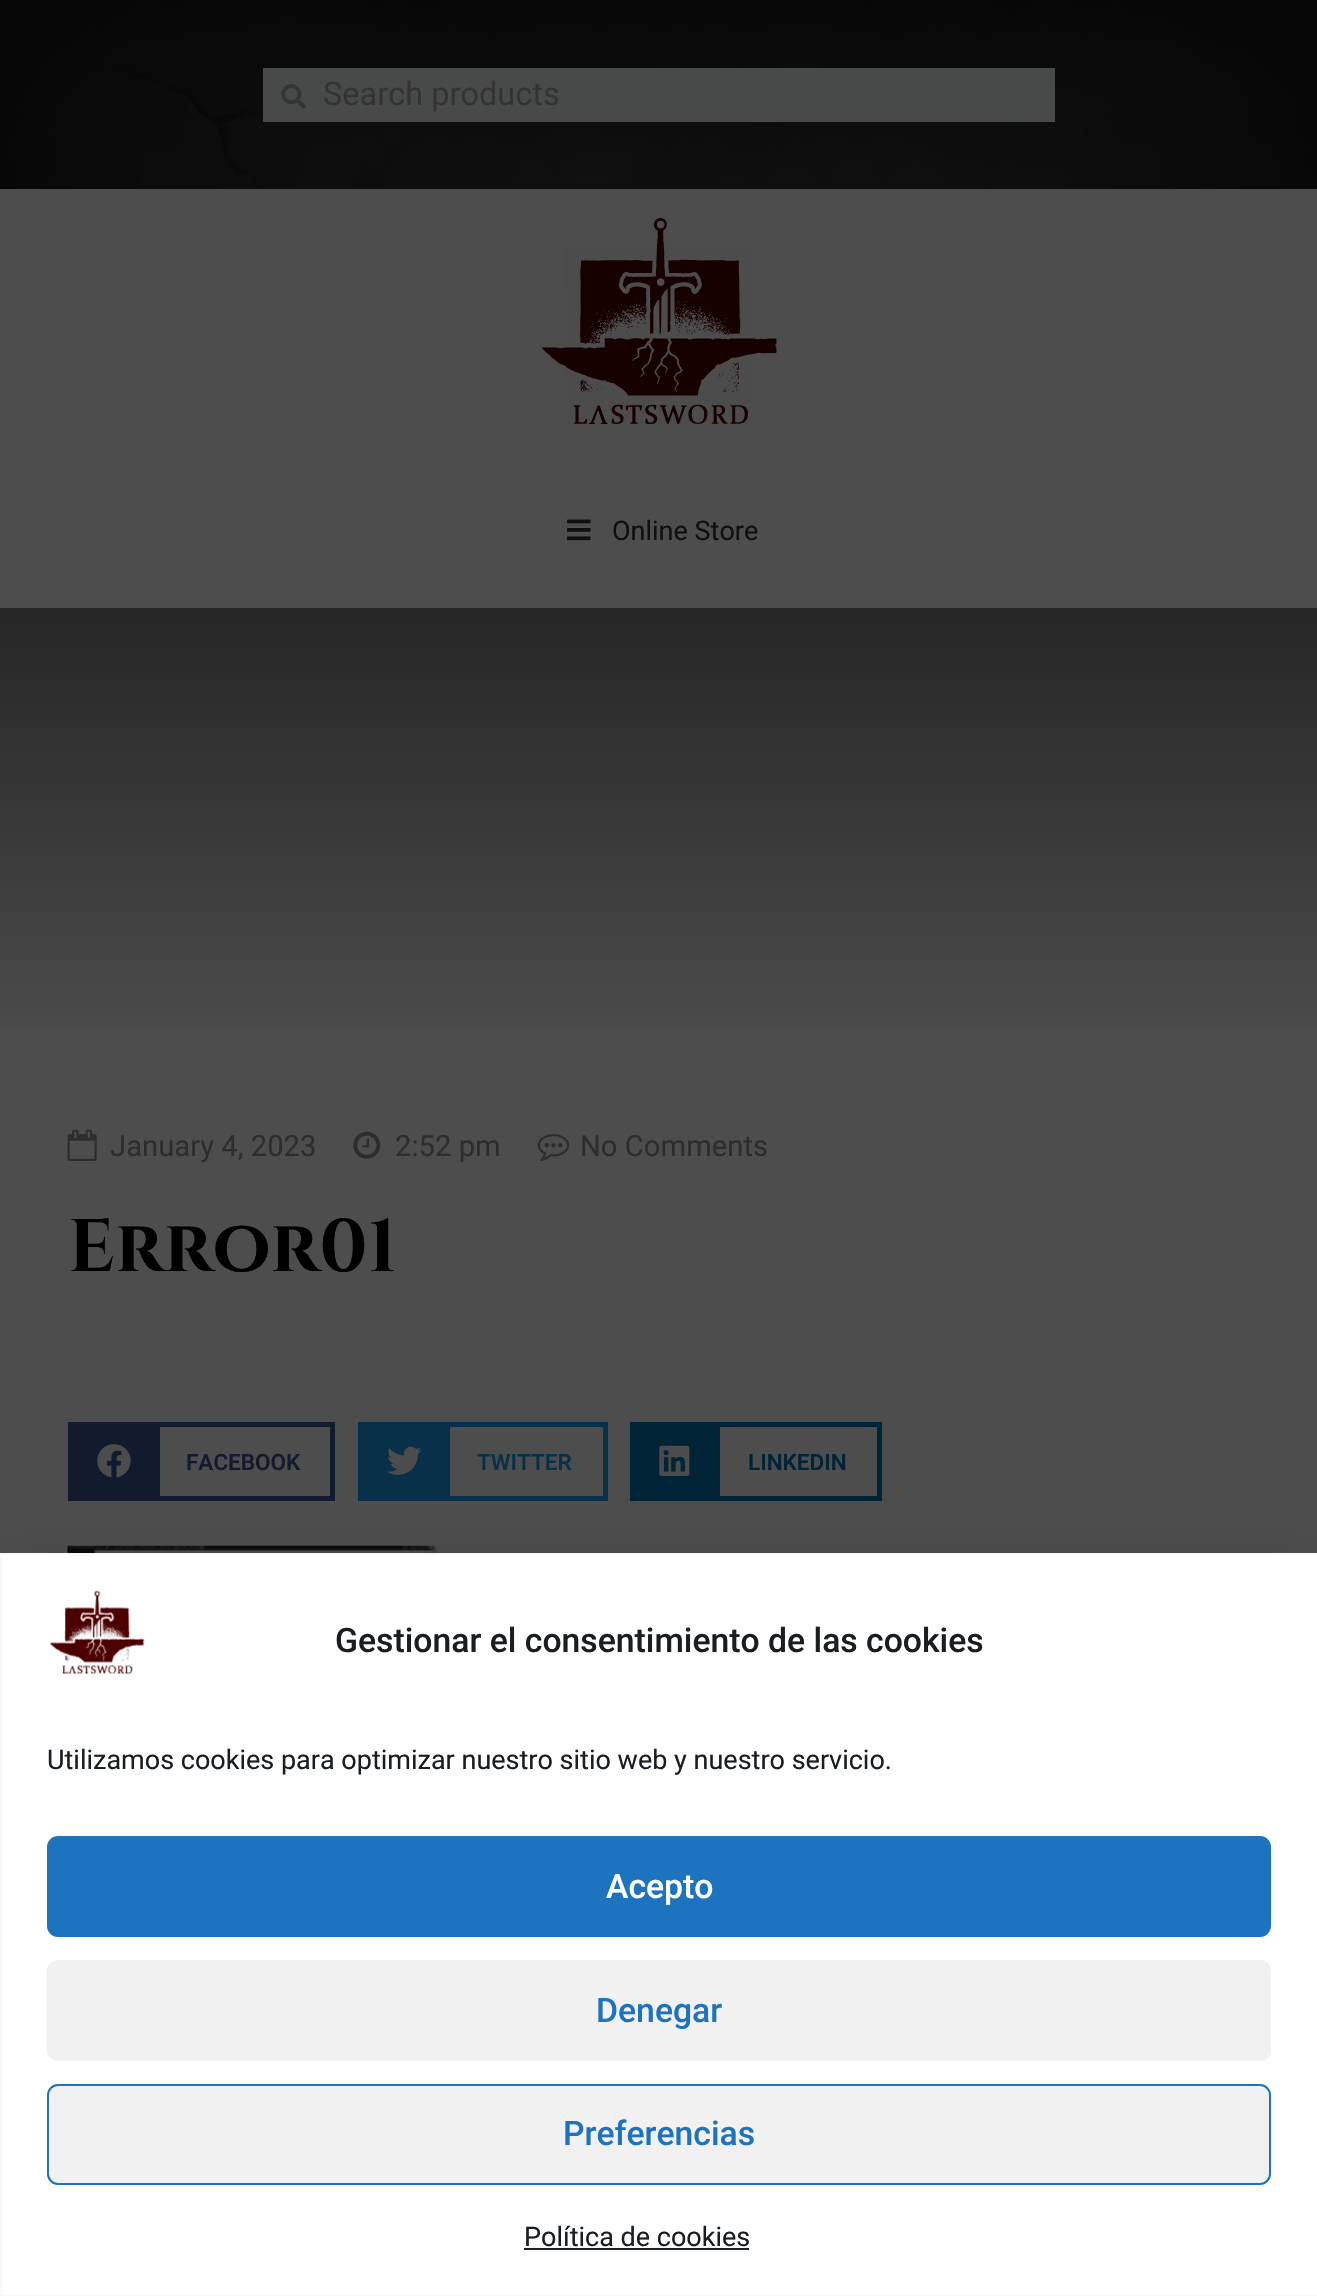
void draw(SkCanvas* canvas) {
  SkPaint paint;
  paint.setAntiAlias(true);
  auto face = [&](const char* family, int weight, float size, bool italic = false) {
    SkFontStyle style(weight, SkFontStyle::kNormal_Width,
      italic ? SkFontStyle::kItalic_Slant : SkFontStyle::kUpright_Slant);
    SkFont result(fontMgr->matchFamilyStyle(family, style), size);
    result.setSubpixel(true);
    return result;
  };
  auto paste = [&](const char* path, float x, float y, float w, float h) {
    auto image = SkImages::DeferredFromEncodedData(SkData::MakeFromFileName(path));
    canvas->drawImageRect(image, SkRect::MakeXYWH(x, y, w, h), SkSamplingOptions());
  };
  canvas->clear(0xff4d4d4d);
  paste("img/1.png", 0, 0, 1317, 189);
  paint.setColor(0xff484949);
  canvas->drawRect(SkRect::MakeXYWH(263, 68, 792, 54), paint);
  paste("img/2.png", 281, 84, 25, 25);
  paste("img/3.png", 541, 218, 236, 206);
  paste("img/4.png", 567, 519, 24, 22);
  {
    const SkColor colors[] = {0xff262626, 0xff4d4d4d};
    const float stops[] = {0, 1};
    const SkPoint ends[] = {{659, 607}, {659, 1058}};
    paint.setShader(SkGradientShader::MakeLinear(ends, colors, stops, 2, SkTileMode::kClamp));
    paint.setAlpha(255);
  }
  canvas->drawRect(SkRect::MakeXYWH(0, 608, 1317, 421), paint);
  paste("img/5.png", 67, 1129, 30, 32);
  paste("img/6.png", 353, 1131, 28, 28);
  paste("img/7.png", 537, 1134, 33, 27);
  paint.setStroke(true);
  paint.setStrokeWidth(5);
  paint.setShader(nullptr);
  paint.setColor(0xff121b2e);
  canvas->drawRect(SkRect::MakeXYWH(70.5f, 1424.5f, 262, 74), paint);
  paint.setStroke(false);
  canvas->drawRect(SkRect::MakeXYWH(73, 1427, 87, 69), paint);
  paste("img/8.png", 97, 1444, 34, 34);
  paint.setStroke(true);
  paint.setColor(0xff093049);
  canvas->drawRect(SkRect::MakeXYWH(360.5f, 1424.5f, 245, 74), paint);
  paint.setStroke(false);
  canvas->drawRect(SkRect::MakeXYWH(363, 1427, 87, 69), paint);
  paste("img/9.png", 387, 1446, 35, 29);
  paint.setStroke(true);
  paint.setColor(0xff002436);
  canvas->drawRect(SkRect::MakeXYWH(632.5f, 1424.5f, 247, 74), paint);
  paint.setStroke(false);
  canvas->drawRect(SkRect::MakeXYWH(635, 1427, 85, 69), paint);
  paste("img/10.png", 659, 1445, 31, 31);
  paste("img/11.png", 67, 1545, 372, 8);
  paint.setColor(0x30000000);
  paint.setMaskFilter(SkMaskFilter::MakeBlur(kNormal_SkBlurStyle, 22.5f));
  canvas->drawRect(SkRect::MakeXYWH(0, 1575, 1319, 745), paint);
  paint.setMaskFilter(nullptr);
  paint.setColor(0xffffffff);
  canvas->drawRect(SkRect::MakeXYWH(1, 1554, 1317, 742), paint);
  paint.setStroke(true);
  paint.setStrokeWidth(2);
  paint.setColor(0xfff9f9f9);
  canvas->drawRect(SkRect::MakeXYWH(1, 1554, 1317, 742), paint);
  paste("img/12.png", 49, 1590, 96, 84);
  paint.setStroke(false);
  paint.setColor(0xff1e73be);
  canvas->drawRoundRect(SkRect::MakeXYWH(48, 1837, 1222, 99), 10, 10, paint);
  paint.setStroke(true);
  canvas->drawRoundRect(SkRect::MakeXYWH(48, 1837, 1222, 99), 10, 10, paint);
  paint.setStroke(false);
  paint.setColor(0xfff1f1f1);
  canvas->drawRoundRect(SkRect::MakeXYWH(48, 1961, 1222, 99), 10, 10, paint);
  paint.setStroke(true);
  canvas->drawRoundRect(SkRect::MakeXYWH(48, 1961, 1222, 99), 10, 10, paint);
  paint.setStroke(false);
  canvas->drawRoundRect(SkRect::MakeXYWH(48, 2085, 1222, 99), 10, 10, paint);
  paint.setStroke(true);
  paint.setColor(0xff1e73be);
  canvas->drawRoundRect(SkRect::MakeXYWH(48, 2085, 1222, 99), 10, 10, paint);
  paint.setStroke(false);
  paint.setColor(0xff191e23);
  canvas->drawRect(SkRect::MakeXYWH(524, 2248, 225, 2), paint);
  auto f0 = face("Roboto", 400, 32.5f);
  paint.setColor(0xff333333);
  canvas->drawString("Search products", 323, 105, f0, paint);
  auto f1 = face("Roboto", 400, 27);
  paint.setColor(0xff0f0f0f);
  canvas->drawString("Online Store", 612, 540, f1, paint);
  auto f2 = face("Roboto", 400, 29.25f);
  paint.setColor(0xff2d2d2d);
  {
    const struct { const char* s; float x, y; } items[] = {
      {"January 4, 2023", 110, 1156},
      {"2:52 pm", 395, 1156},
      {"No Comments", 580, 1156},
    };
    for (auto [s, x, y] : items) {
      canvas->drawString(s, x, y, f2, paint);
    }
  }
  auto f3 = face("Cinzel", 700, 74.25f);
  paint.setColor(0xff000000);
  canvas->drawString("Error01", 68, 1271, f3, paint);
  auto f4 = face("Roboto", 600, 22.5f);
  paint.setColor(0xff121b2e);
  canvas->drawString("FACEBOOK", 186, 1470, f4, paint);
  paint.setColor(0xff093049);
  canvas->drawString("TWITTER", 477, 1470, f4, paint);
  paint.setColor(0xff002436);
  canvas->drawString("LINKEDIN", 748, 1470, f4, paint);
  auto f5 = face("Roboto", 500, 33.75f);
  paint.setColor(0xff191e23);
  canvas->drawString("Gestionar el consentimiento de las cookies", 335, 1652, f5, paint);
  canvas->drawString("Utilizamos cookies para optimizar nuestro sitio web y nuestro servicio.", 47, 1769, f1, paint);
  paint.setColor(0xffffffff);
  canvas->drawString("Acepto", 606, 1898, f5, paint);
  paint.setColor(0xff1e73be);
  canvas->drawString("Denegar", 596, 2022, f5, paint);
  canvas->drawString("Preferencias", 563, 2145, f5, paint);
  paint.setColor(0xff191e23);
  canvas->drawString("Política de cookies", 524, 2246, f1, paint);
}
